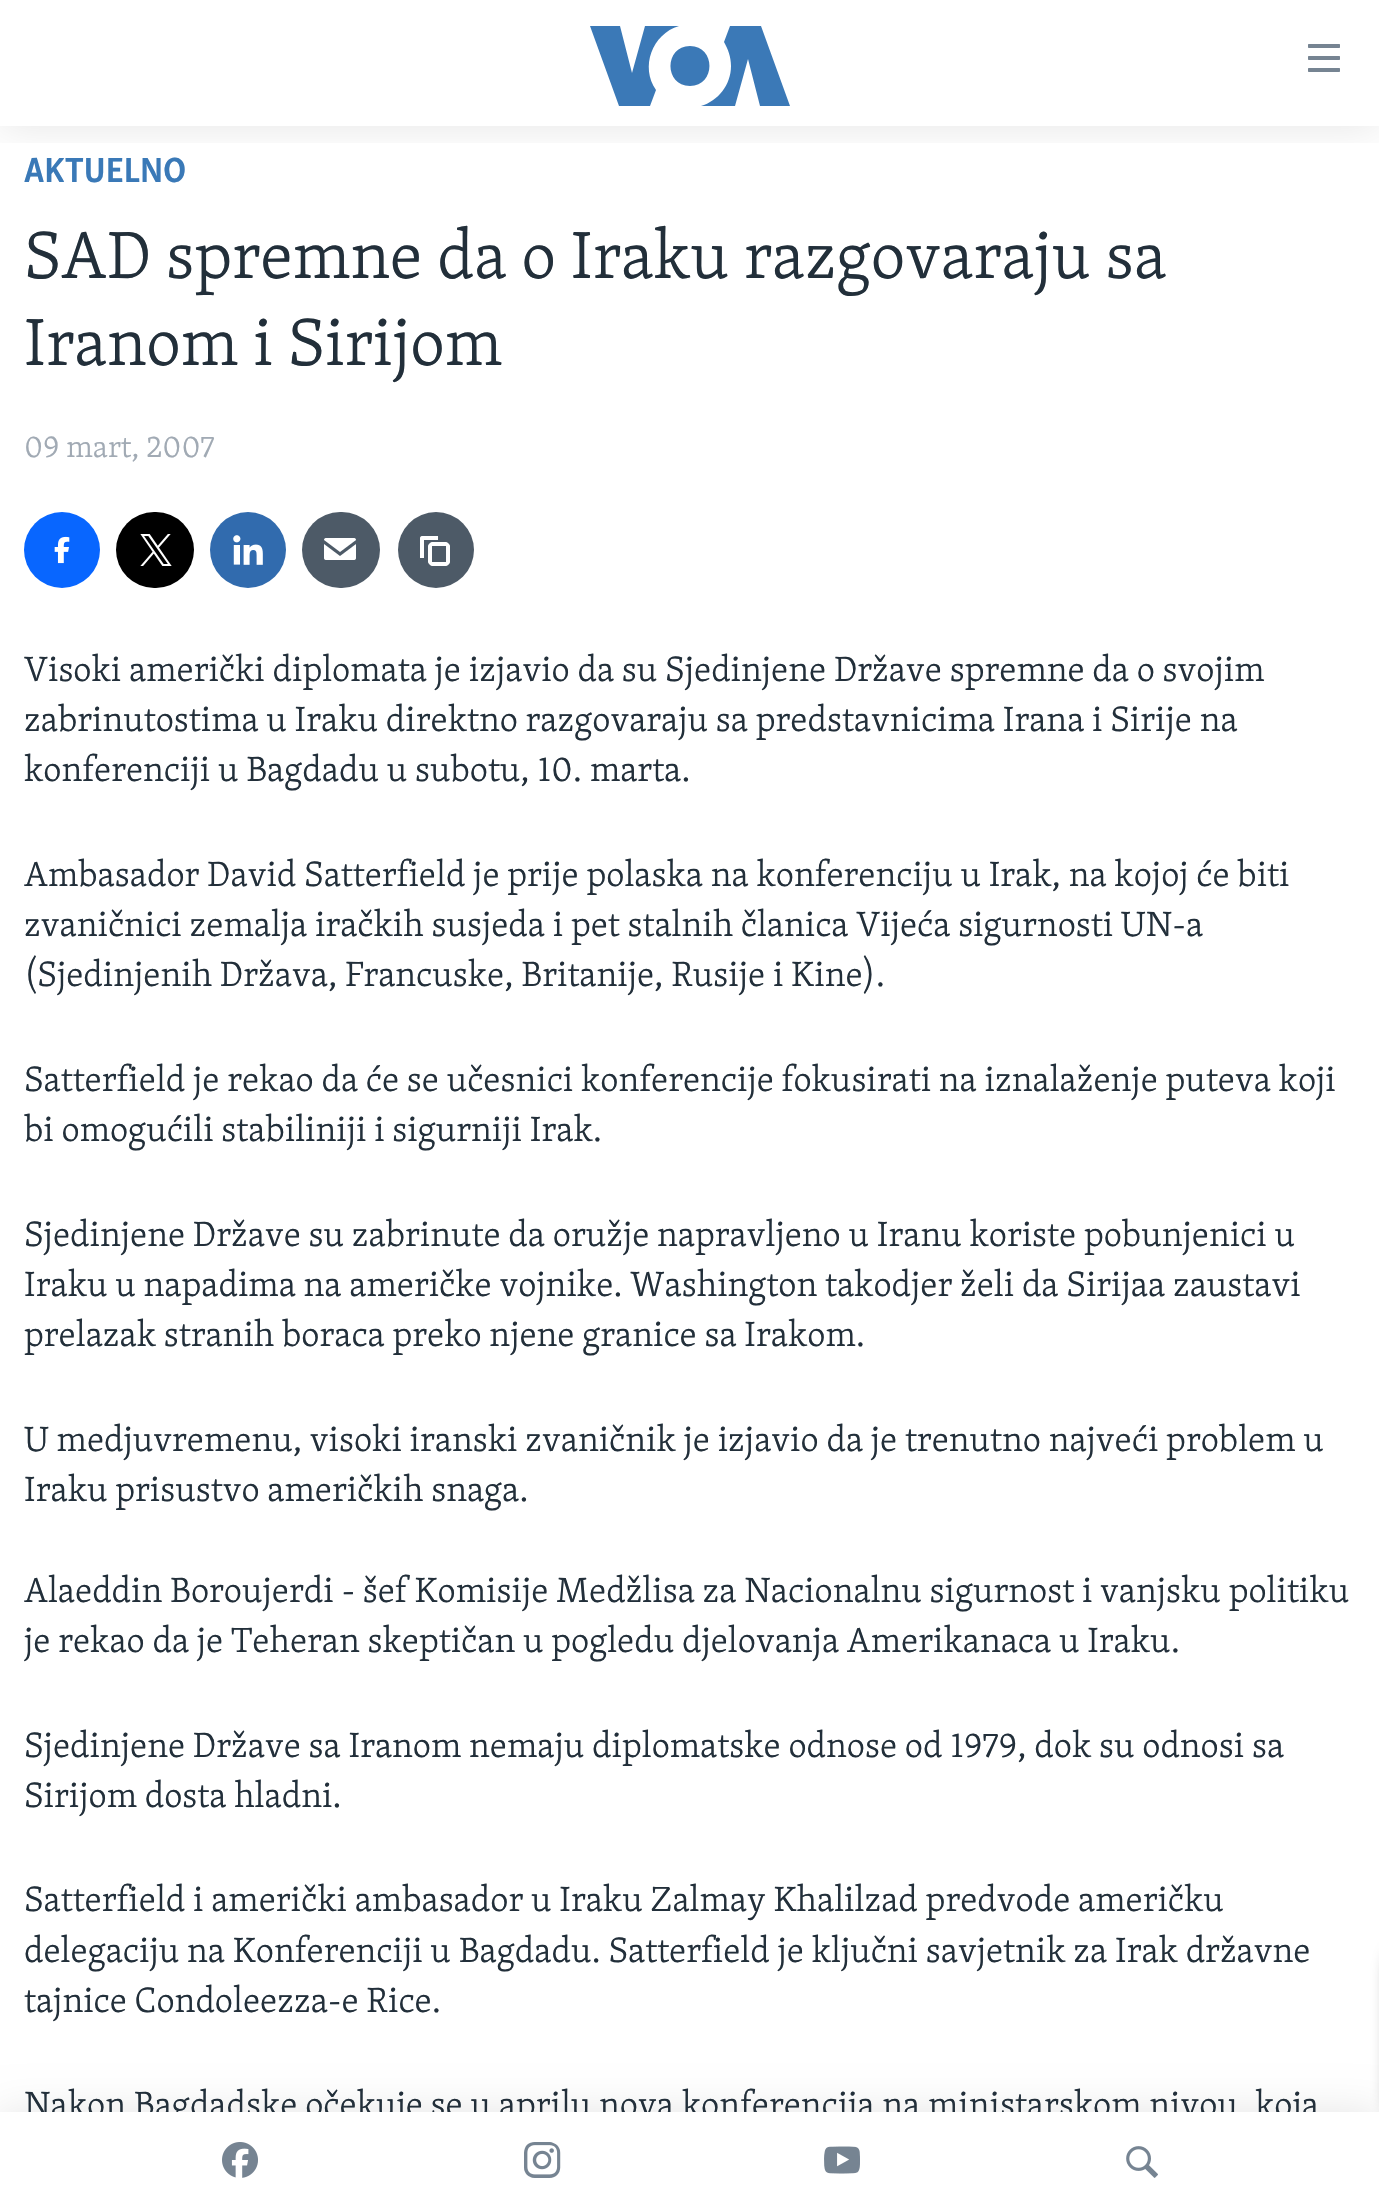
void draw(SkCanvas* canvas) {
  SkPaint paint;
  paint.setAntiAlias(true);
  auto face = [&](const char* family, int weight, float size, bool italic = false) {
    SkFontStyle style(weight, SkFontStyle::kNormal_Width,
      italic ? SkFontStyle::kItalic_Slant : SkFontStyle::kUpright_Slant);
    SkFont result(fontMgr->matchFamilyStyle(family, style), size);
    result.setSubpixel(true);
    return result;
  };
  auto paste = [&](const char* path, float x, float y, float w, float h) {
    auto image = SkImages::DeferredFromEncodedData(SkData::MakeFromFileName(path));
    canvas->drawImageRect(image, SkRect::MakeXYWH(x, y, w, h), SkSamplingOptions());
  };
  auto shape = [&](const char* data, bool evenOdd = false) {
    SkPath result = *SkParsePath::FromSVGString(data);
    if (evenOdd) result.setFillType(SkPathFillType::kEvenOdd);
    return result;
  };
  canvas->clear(0xffffffff);
  canvas->save();
  canvas->clipRect(SkRect::MakeXYWH(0, 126, 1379, 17));
  paint.setColor(0x1a000000);
  paint.setMaskFilter(SkMaskFilter::MakeBlur(kNormal_SkBlurStyle, 20));
  canvas->drawRect(SkRect::MakeXYWH(0, 0, 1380, 126), paint);
  paint.setMaskFilter(nullptr);
  canvas->restore();
  paint.setColor(0xff3b79b7);
  canvas->drawPath(shape("M656 90L650 106H619L590 26H620L632 73L645 26H679C652 34 640 67 656 90ZM690 46C664 46 664 86 690 86C716 86 716 46 690 46ZM731 66C731 85 718 101 701 106H735L748 59L760 106H790L761 26H730L724 42C728 49 731 57 731 66Z"), paint);
  paste("img/1.png", 1308, 44, 32, 28);
  paint.setColor(0x1a000000);
  paint.setMaskFilter(SkMaskFilter::MakeBlur(kNormal_SkBlurStyle, 20));
  canvas->drawRect(SkRect::MakeXYWH(0, 2112, 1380, 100), paint);
  paint.setMaskFilter(nullptr);
  paint.setColor(0xff0866ff);
  canvas->drawCircle(62, 550, 38, paint);
  paste("img/6.png", 54, 536, 16, 28);
  paint.setColor(0xff000000);
  canvas->drawRoundRect(SkRect::MakeXYWH(116, 512, 78, 76), 38, 38, paint);
  paste("img/7.png", 140, 534, 32, 32);
  paint.setColor(0xff316bae);
  canvas->drawCircle(248, 550, 38, paint);
  paste("img/8.png", 233, 535, 30, 30);
  paint.setColor(0xff4d5a67);
  canvas->drawRoundRect(SkRect::MakeXYWH(302, 512, 78, 76), 38, 38, paint);
  paste("img/9.png", 324, 538, 32, 22);
  canvas->drawCircle(436, 550, 38, paint);
  paste("img/10.png", 420, 536, 30, 30);
  paint.setColor(0xd9000000);
  paint.setMaskFilter(SkMaskFilter::MakeBlur(kNormal_SkBlurStyle, 10));
  canvas->drawRoundRect(SkRect::MakeXYWH(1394, 1956, 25, 156), 10, 10, paint);
  paint.setMaskFilter(nullptr);
  auto f0 = face("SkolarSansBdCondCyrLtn", 700, 36);
  paint.setColor(0xff3a79b7);
  canvas->drawString("AKTUELNO", 24, 182, f0, paint);
  auto f1 = face("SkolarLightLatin", 300, 68.4f);
  paint.setColor(0xff222f3a);
  canvas->drawString("SAD spremne da o Iraku razgovaraju sa", 24, 278, f1, paint);
  canvas->drawString("Iranom i Sirijom", 24, 365, f1, paint);
  auto f2 = face("SkolarLightLatin", 300, 31.5f);
  paint.setColor(0xffa1aab4);
  canvas->drawString("09 mart, 2007", 24, 457, f2, paint);
  auto f3 = face("SkolarLightLatin", 300, 36);
  paint.setColor(0xff222f3a);
  {
    const struct { const char* s; float x, y; } items[] = {
      {"Visoki američki diplomata je izjavio da su Sjedinjene Države spremne da o svojim", 24, 681},
      {"zabrinutostima u Iraku direktno razgovaraju sa predstavnicima Irana i Sirije na", 24, 731},
      {"konferenciji u Bagdadu u subotu, 10. marta.", 24, 781},
      {"Ambasador David Satterfield je prije polaska na konferenciju u Irak, na kojoj će biti", 24, 886},
      {"zvaničnici zemalja iračkih susjeda i pet stalnih članica Vijeća sigurnosti UN-a", 24, 936},
      {"(Sjedinjenih Država, Francuske, Britanije, Rusije i Kine).", 24, 986},
      {"Satterfield je rekao da će se učesnici konferencije fokusirati na iznalaženje puteva koji", 24, 1091},
      {"bi omogućili stabiliniji i sigurniji Irak.", 24, 1141},
      {"Sjedinjene Države su zabrinute da oružje napravljeno u Iranu koriste pobunjenici u", 24, 1246},
      {"Iraku u napadima na američke vojnike. Washington takodjer želi da Sirijaa zaustavi", 24, 1296},
      {"prelazak stranih boraca preko njene granice sa Irakom.", 24, 1346},
      {"U medjuvremenu, visoki iranski zvaničnik je izjavio da je trenutno najveći problem u", 24, 1451},
      {"Iraku prisustvo američkih snaga.", 24, 1501},
      {"Alaeddin Boroujerdi - šef Komisije Medžlisa za Nacionalnu sigurnost i vanjsku politiku", 24, 1602},
      {"je rekao da je Teheran skeptičan u pogledu djelovanja Amerikanaca u Iraku.", 24, 1652},
      {"Sjedinjene Države sa Iranom nemaju diplomatske odnose od 1979, dok su odnosi sa", 24, 1757},
      {"Sirijom dosta hladni.", 24, 1807},
      {"Satterfield i američki ambasador u Iraku Zalmay Khalilzad predvode američku", 24, 1911},
      {"delegaciju na Konferenciji u Bagdadu. Satterfield je ključni savjetnik za Irak državne", 24, 1962},
      {"tajnice Condoleezza-e Rice.", 24, 2012},
      {"Nakon Bagdadske očekuje se u aprilu nova konferencija na ministarskom nivou, koja", 24, 2116},
    };
    for (auto [s, x, y] : items) {
      canvas->drawString(s, x, y, f3, paint);
    }
  }
  paint.setColor(0xffffffff);
  canvas->drawRect(SkRect::MakeXYWH(0, 2112, 1379, 99), paint);
  paste("img/5.png", 1126, 2146, 32, 32);
  paste("img/4.png", 824, 2146, 36, 28);
  paste("img/3.png", 524, 2142, 37, 36);
  paste("img/2.png", 222, 2142, 36, 36);
}
